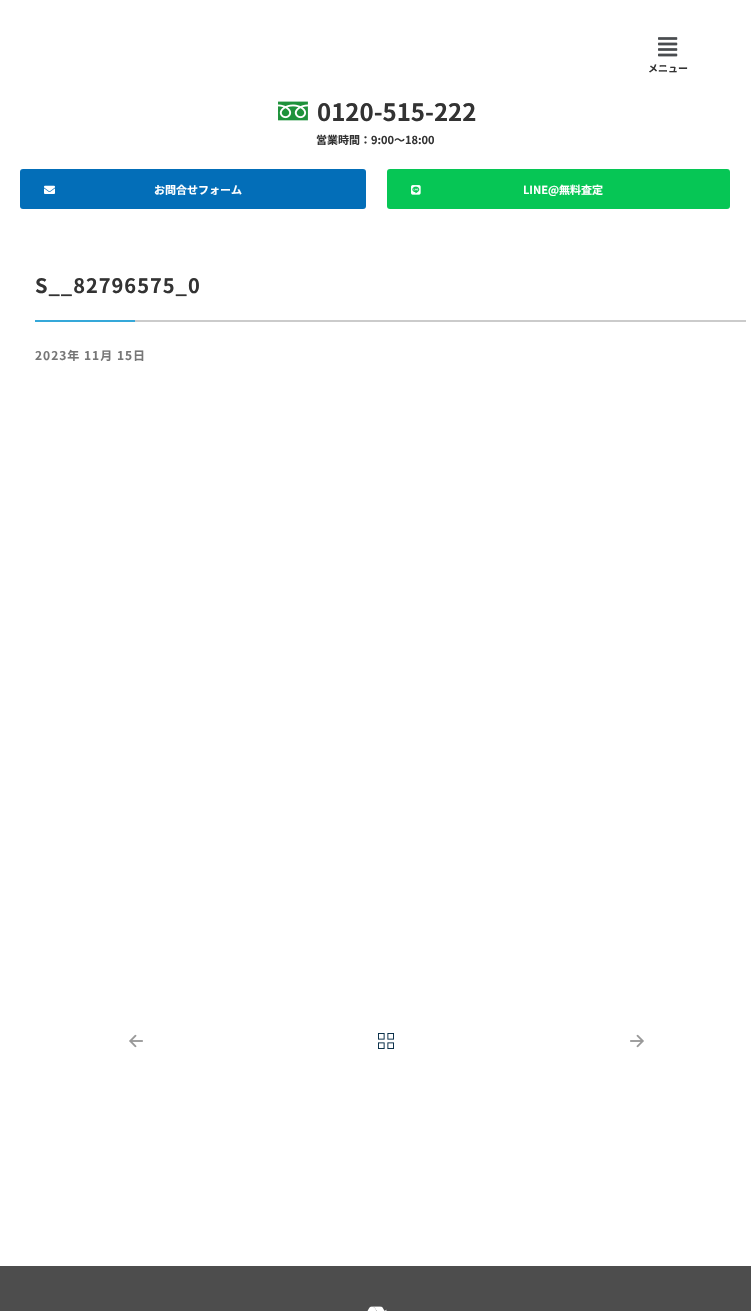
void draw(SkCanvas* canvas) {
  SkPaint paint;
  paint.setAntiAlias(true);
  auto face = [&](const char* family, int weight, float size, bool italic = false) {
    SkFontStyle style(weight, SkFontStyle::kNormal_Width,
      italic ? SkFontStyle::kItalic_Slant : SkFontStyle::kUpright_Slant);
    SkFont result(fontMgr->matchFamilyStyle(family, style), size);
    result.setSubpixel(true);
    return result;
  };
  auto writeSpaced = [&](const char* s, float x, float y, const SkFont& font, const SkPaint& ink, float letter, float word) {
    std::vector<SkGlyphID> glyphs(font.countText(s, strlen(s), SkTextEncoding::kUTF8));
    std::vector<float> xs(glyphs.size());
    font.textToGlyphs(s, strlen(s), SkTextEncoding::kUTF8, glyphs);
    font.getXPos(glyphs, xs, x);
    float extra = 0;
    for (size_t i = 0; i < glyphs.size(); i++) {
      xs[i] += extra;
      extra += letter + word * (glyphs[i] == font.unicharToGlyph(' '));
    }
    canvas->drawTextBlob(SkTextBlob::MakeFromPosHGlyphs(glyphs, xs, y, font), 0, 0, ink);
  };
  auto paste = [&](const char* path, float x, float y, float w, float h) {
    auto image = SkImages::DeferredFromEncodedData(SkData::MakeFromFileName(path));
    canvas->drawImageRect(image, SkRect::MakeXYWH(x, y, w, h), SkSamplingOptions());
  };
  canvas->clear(0xffffffff);
  paste("img/1.png", 658, 37, 20, 20);
  paste("img/2.png", 278, 101, 30, 20);
  paint.setColor(0xff036eb8);
  canvas->drawRoundRect(SkRect::MakeXYWH(20, 169, 346, 40), 3, 3, paint);
  paste("img/3.png", 44, 185, 11, 9);
  paint.setColor(0xff06c655);
  canvas->drawRoundRect(SkRect::MakeXYWH(387, 169, 343, 40), 3, 3, paint);
  paste("img/4.png", 411, 185, 10, 10);
  paint.setColor(0xffcbcbcb);
  canvas->drawRect(SkRect::MakeXYWH(135, 320, 611, 2), paint);
  paint.setColor(0xff35a8d9);
  canvas->drawRect(SkRect::MakeXYWH(35, 320, 100, 2), paint);
  paste("img/5.png", 129, 1034, 14, 14);
  paste("img/6.png", 378, 1033, 16, 16);
  paste("img/7.png", 630, 1034, 14, 14);
  paint.setColor(0xff4d4d4d);
  canvas->drawRect(SkRect::MakeXYWH(0, 1266, 751, 45), paint);
  paste("img/8.png", 367, 1306, 20, 5);
  auto f0 = face("Noto Sans JP", 700, 10);
  paint.setColor(0xff333333);
  canvas->drawString("メニュー", 648, 72, f0, paint);
  auto f1 = face("Noto Sans JP", 700, 24);
  canvas->drawString("0120-515-222", 317, 121, f1, paint);
  auto f2 = face("Noto Sans JP", 700, 11);
  canvas->drawString("営業時間：9:00～18:00", 316, 144, f2, paint);
  paint.setColor(0xffffffff);
  canvas->drawString("お問合せフォーム", 154, 194, f2, paint);
  canvas->drawString("LINE@無料査定", 523, 194, f2, paint);
  auto f3 = face("Noto Sans JP", 700, 20);
  paint.setColor(0xff333333);
  writeSpaced("S__82796575_0", 35, 293, f3, paint, 1, 0);
  auto f4 = face("Noto Sans JP", 700, 12);
  paint.setColor(0xff777777);
  writeSpaced("2023年 11月 15日", 35, 360, f4, paint, 1, 0);
}
